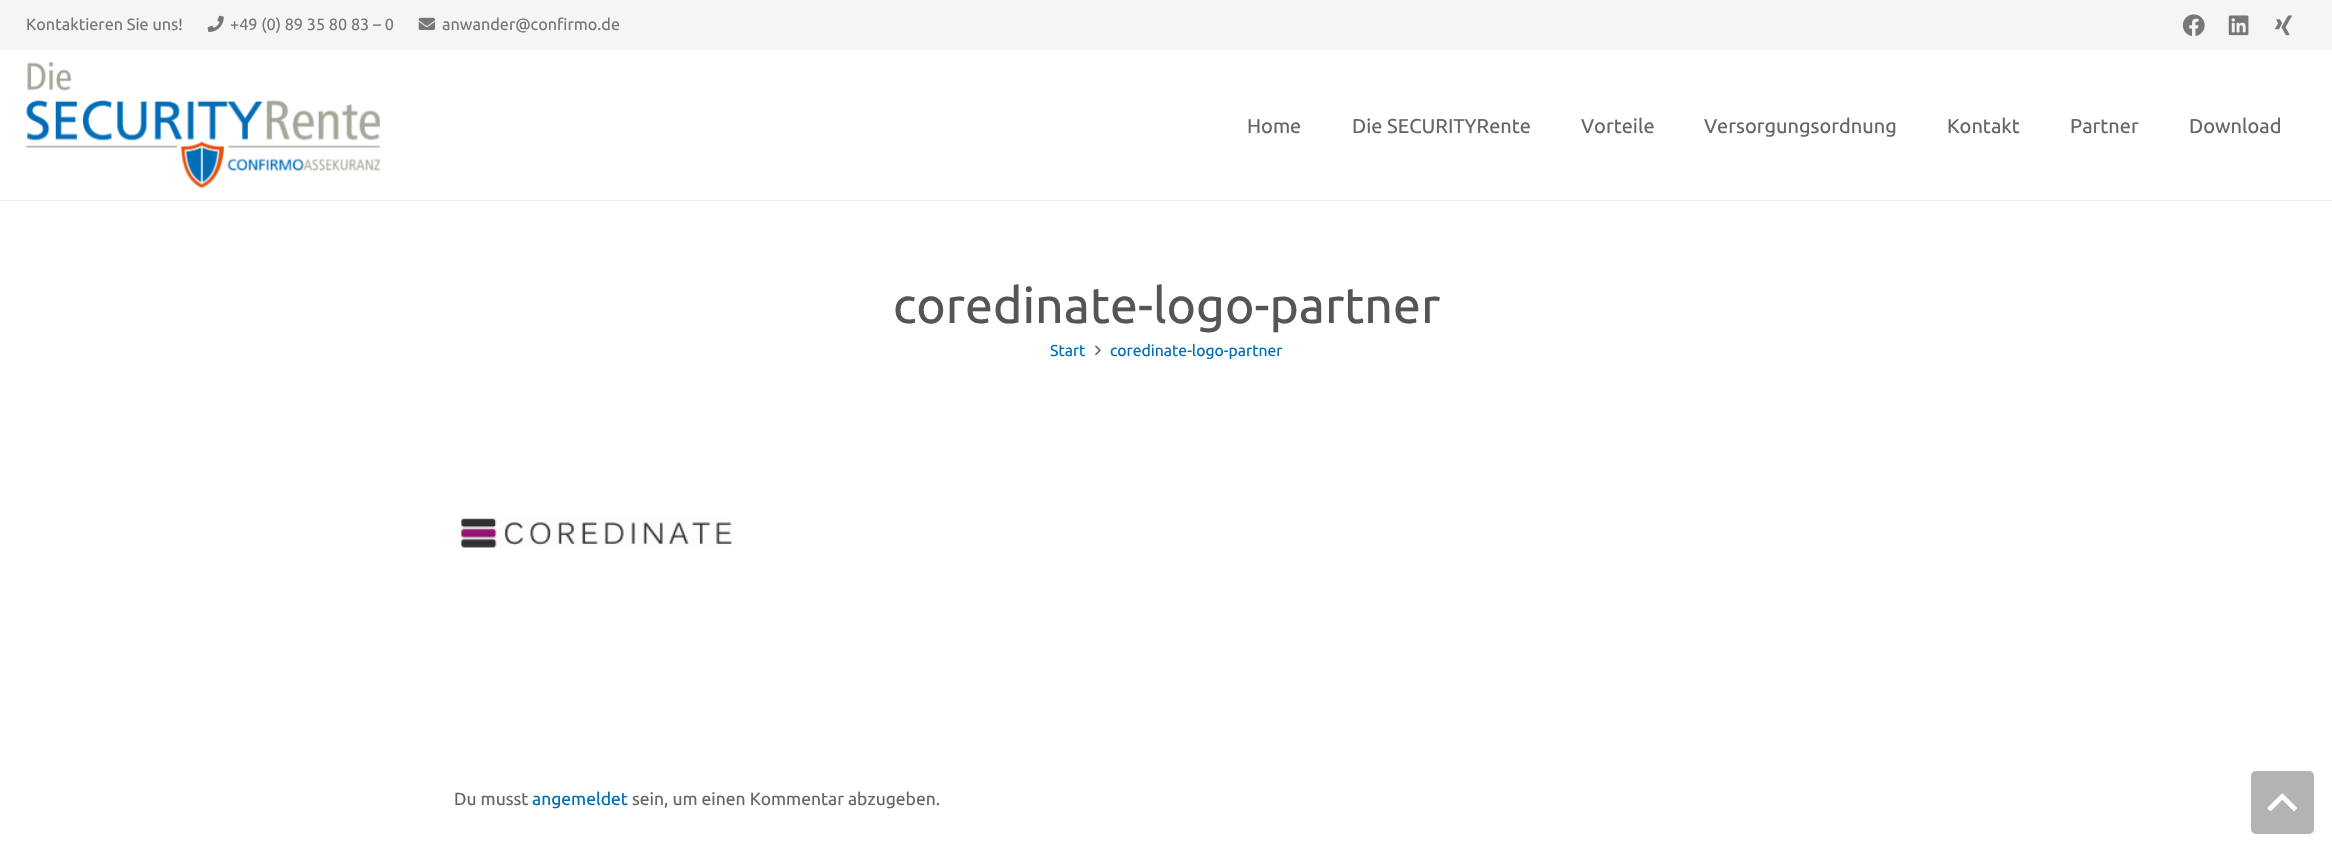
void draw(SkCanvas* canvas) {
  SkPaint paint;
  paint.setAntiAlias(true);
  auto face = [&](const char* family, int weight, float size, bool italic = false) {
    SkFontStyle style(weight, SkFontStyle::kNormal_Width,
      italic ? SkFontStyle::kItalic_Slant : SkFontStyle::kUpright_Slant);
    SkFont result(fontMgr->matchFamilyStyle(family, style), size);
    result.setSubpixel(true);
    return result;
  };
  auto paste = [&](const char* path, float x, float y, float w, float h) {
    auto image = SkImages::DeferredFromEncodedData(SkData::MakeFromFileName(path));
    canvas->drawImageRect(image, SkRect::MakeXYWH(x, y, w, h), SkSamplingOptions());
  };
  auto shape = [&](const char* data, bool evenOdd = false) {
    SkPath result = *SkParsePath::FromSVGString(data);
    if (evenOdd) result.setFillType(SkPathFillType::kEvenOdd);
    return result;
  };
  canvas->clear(0xffffffff);
  paint.setColor(0xfff5f5f5);
  canvas->drawRect(SkRect::MakeXYWH(0, 0, 2332, 50), paint);
  paste("img/1.png", 207, 15, 17, 17);
  paste("img/2.png", 418, 17, 17, 13);
  paste("img/3.png", 2182, 14, 23, 22);
  paste("img/4.png", 2228, 15, 21, 21);
  paste("img/5.png", 2275, 15, 17, 21);
  paint.setColor(0xffebebeb);
  canvas->drawPath(shape("M0 200V201H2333V51H2332V200Z"), paint);
  paste("img/6.png", 26, 62, 354, 126);
  paste("img/7.png", 1095, 345, 6, 11);
  paste("img/8.png", 461, 518, 271, 30);
  paint.setColor(0xffb3b3b3);
  canvas->drawRoundRect(SkRect::MakeXYWH(2251, 771, 63, 63), 5, 5, paint);
  paste("img/9.png", 2267, 793, 30, 19);
  auto f0 = face("Ubuntu", 400, 16.25f);
  paint.setColor(0xff777777);
  {
    const struct { const char* s; float x, y; } items[] = {
      {"Kontaktieren Sie uns!", 26, 30},
      {"+49 (0) 89 35 80 83 – 0", 230, 30},
      {"anwander@confirmo.de", 442, 30},
    };
    for (auto [s, x, y] : items) {
      canvas->drawString(s, x, y, f0, paint);
    }
  }
  auto f1 = face("Ubuntu", 400, 20);
  paint.setColor(0xff666666);
  {
    const struct { const char* s; float x, y; } items[] = {
      {"Home", 1247, 133},
      {"Die SECURITYRente", 1352, 133},
      {"Vorteile", 1581, 133},
      {"Versorgungsordnung", 1704, 133},
      {"Kontakt", 1947, 133},
      {"Partner", 2070, 133},
      {"Download", 2189, 133},
    };
    for (auto [s, x, y] : items) {
      canvas->drawString(s, x, y, f1, paint);
    }
  }
  auto f2 = face("Ubuntu", 400, 50);
  paint.setColor(0xff555555);
  canvas->drawString("coredinate-logo-partner", 893, 323, f2, paint);
  auto f3 = face("Ubuntu", 400, 15.75f);
  paint.setColor(0xff006eb7);
  canvas->drawString("Start", 1050, 356, f3, paint);
  canvas->drawString("coredinate-logo-partner", 1110, 356, f3, paint);
  auto f4 = face("Ubuntu", 400, 17.5f);
  paint.setColor(0xff666666);
  canvas->drawString("Du musst", 454, 805, f4, paint);
  paint.setColor(0xff006eb7);
  canvas->drawString("angemeldet", 532, 805, f4, paint);
  paint.setColor(0xff666666);
  canvas->drawString("sein, um einen Kommentar abzugeben.", 632, 805, f4, paint);
}
